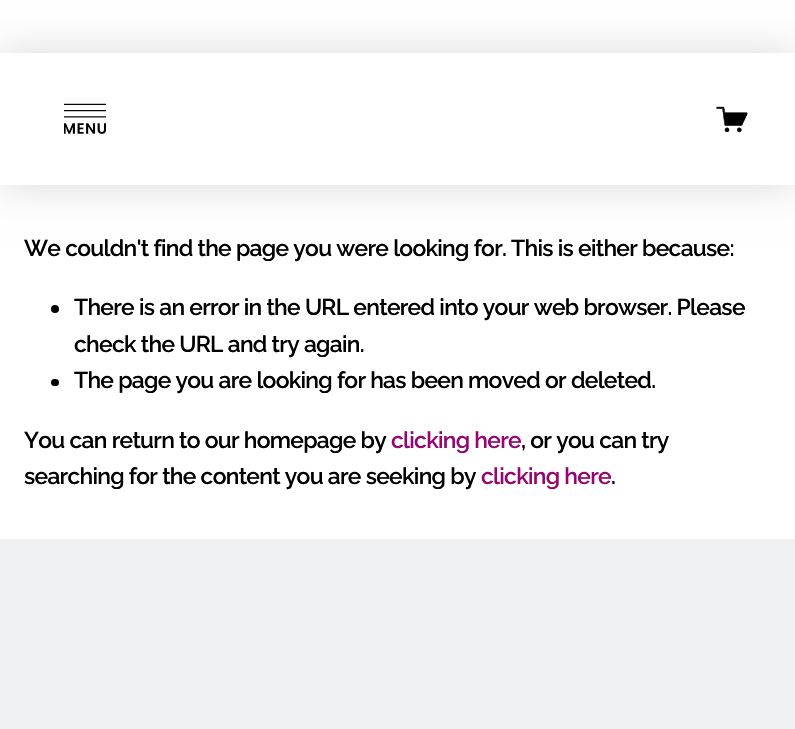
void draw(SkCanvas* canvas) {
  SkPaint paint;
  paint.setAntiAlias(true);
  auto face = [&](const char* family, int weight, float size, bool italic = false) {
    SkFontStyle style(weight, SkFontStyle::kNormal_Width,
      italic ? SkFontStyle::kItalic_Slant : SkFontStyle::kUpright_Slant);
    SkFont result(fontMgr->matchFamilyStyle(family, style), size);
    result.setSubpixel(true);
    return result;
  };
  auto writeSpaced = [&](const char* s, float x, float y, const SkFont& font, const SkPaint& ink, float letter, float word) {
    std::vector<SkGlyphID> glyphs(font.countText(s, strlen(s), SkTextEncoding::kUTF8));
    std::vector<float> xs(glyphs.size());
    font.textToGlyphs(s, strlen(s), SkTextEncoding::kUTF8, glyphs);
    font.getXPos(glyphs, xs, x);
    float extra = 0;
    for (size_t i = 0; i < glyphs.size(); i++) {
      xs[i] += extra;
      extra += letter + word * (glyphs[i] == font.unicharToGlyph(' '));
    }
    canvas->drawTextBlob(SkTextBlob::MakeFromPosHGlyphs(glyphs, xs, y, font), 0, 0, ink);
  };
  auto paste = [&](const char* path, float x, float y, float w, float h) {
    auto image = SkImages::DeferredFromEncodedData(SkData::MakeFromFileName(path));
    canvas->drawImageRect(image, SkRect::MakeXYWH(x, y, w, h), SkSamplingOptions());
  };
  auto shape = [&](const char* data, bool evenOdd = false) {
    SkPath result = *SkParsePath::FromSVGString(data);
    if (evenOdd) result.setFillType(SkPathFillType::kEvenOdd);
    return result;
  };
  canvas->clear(0xffffffff);
  canvas->save();
  canvas->clipPath(shape("M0 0H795V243H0ZM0 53H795V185H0Z", true), true);
  paint.setColor(0xffd9d9d9);
  paint.setMaskFilter(SkMaskFilter::MakeBlur(kNormal_SkBlurStyle, 19));
  canvas->drawRect(SkRect::MakeXYWH(0, 53, 795, 132), paint);
  paint.setMaskFilter(nullptr);
  canvas->restore();
  paste("img/1.png", 64, 103, 42, 31);
  paste("img/2.png", 716, 106, 32, 27);
  paint.setColor(0xff000000);
  canvas->drawCircle(55, 309, 4, paint);
  canvas->drawRoundRect(SkRect::MakeXYWH(51, 379, 8, 7), 3.5f, 3.5f, paint);
  paint.setColor(0xffeff0f1);
  canvas->drawRect(SkRect::MakeXYWH(0, 539, 795, 190), paint);
  auto f0 = face("Raleway", 600, 22.85f);
  paint.setColor(0xff000000);
  {
    const struct { const char* s; float x, y; } items[] = {
      {"We couldn't find the page you were looking for. This is either because:", 24, 256},
      {"There is an error in the URL entered into your web browser. Please", 74, 315},
      {"check the URL and try again.", 74, 352},
      {"The page you are looking for has been moved or deleted.", 74, 388},
      {"You can return to our homepage by", 24, 448},
    };
    for (auto [s, x, y] : items) {
      writeSpaced(s, x, y, f0, paint, -0.7f, 0);
    }
  }
  paint.setColor(0xff960570);
  writeSpaced("clicking here", 391, 448, f0, paint, -0.7f, 0);
  paint.setColor(0xff000000);
  writeSpaced(", or you can try", 521, 448, f0, paint, -0.7f, 0);
  writeSpaced("searching for the content you are seeking by", 24, 484, f0, paint, -0.7f, 0);
  paint.setColor(0xff960570);
  writeSpaced("clicking here", 481, 484, f0, paint, -0.7f, 0);
  paint.setColor(0xff000000);
  writeSpaced(".", 611, 484, f0, paint, -0.7f, 0);
}
